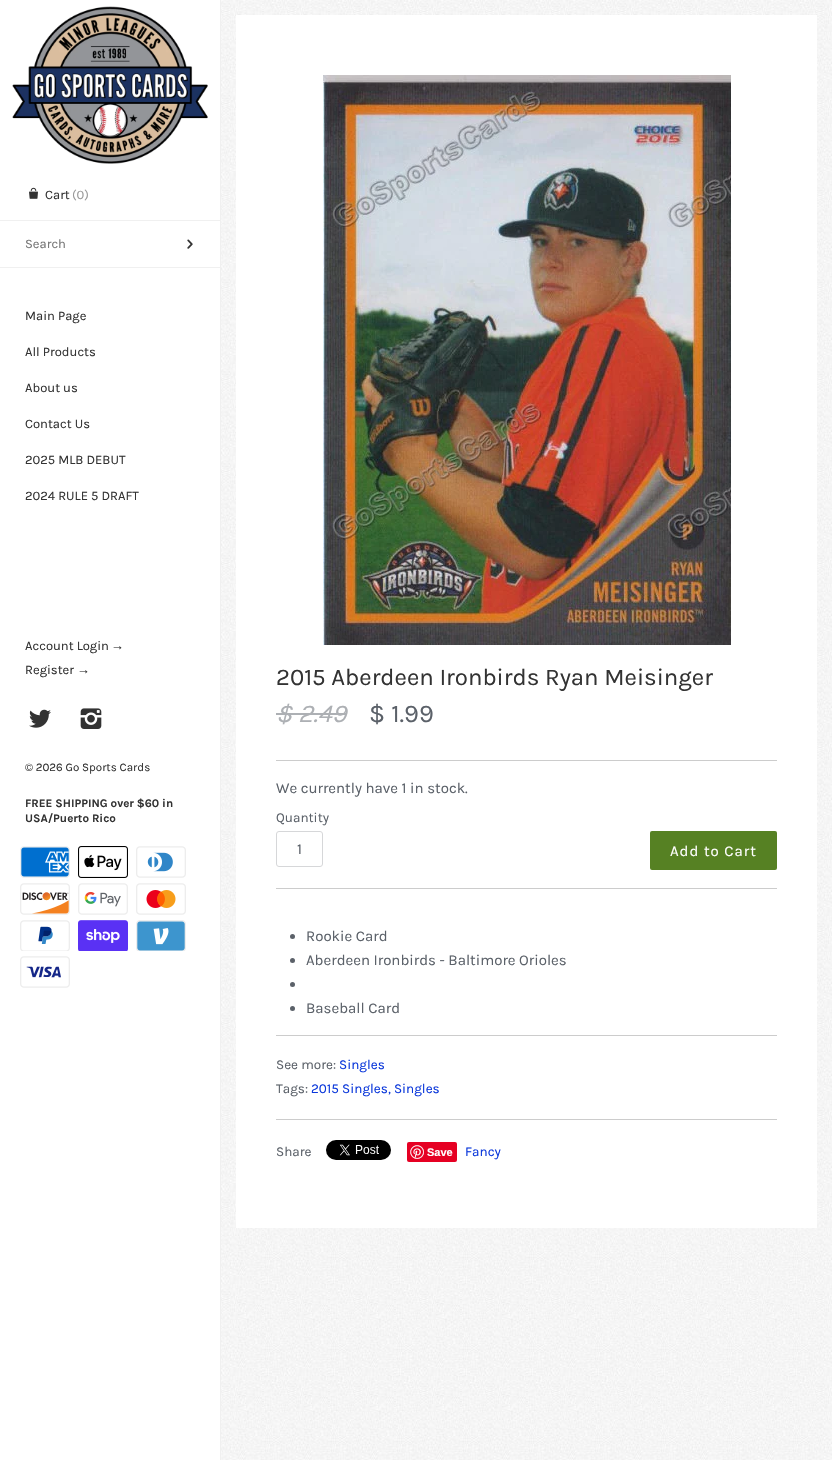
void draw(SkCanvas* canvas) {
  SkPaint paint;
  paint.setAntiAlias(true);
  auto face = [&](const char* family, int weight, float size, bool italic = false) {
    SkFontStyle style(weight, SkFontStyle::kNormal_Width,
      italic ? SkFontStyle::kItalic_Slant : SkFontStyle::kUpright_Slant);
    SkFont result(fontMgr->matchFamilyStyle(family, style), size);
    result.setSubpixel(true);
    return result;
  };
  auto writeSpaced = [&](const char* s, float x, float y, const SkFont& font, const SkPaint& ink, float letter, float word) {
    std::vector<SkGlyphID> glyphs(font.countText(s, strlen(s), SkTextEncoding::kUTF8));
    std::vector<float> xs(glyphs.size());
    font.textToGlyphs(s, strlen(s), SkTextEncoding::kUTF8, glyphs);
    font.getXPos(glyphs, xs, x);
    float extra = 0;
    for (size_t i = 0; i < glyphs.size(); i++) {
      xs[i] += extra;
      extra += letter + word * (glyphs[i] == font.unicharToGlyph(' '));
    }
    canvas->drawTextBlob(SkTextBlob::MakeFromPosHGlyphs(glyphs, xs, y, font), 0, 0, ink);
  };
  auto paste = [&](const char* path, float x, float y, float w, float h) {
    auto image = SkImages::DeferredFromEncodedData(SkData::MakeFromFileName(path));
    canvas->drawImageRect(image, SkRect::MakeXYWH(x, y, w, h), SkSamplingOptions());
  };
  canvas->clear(0xffffffff);
  paste("img/1.png", 221, 0, 611, 1460);
  paint.setColor(0xfff0f0f0);
  canvas->drawRect(SkRect::MakeXYWH(220, 0, 1, 1460), paint);
  paste("img/2.png", 12, 6, 196, 158);
  paste("img/3.png", 29, 187, 9, 12);
  canvas->drawRect(SkRect::MakeXYWH(0, 220, 220, 1), paint);
  canvas->drawRect(SkRect::MakeXYWH(0, 267, 220, 1), paint);
  paste("img/4.png", 187, 239, 6, 10);
  paste("img/5.png", 29, 709, 22, 19);
  paste("img/6.png", 80, 708, 22, 21);
  paste("img/7.png", 20, 846, 50, 32);
  paste("img/8.png", 78, 846, 50, 32);
  paste("img/9.png", 136, 846, 50, 32);
  paste("img/10.png", 20, 883, 50, 32);
  paste("img/11.png", 78, 883, 50, 32);
  paste("img/12.png", 136, 883, 50, 32);
  paste("img/13.png", 20, 920, 50, 31);
  paste("img/14.png", 78, 920, 50, 31);
  paste("img/15.png", 136, 920, 50, 31);
  paste("img/16.png", 20, 956, 50, 32);
  paint.setColor(0xffffffff);
  canvas->drawRect(SkRect::MakeXYWH(236, 15, 581, 1213), paint);
  paste("img/17.png", 323, 75, 408, 570);
  paint.setColor(0xffadb0b4);
  canvas->drawRect(SkRect::MakeXYWH(276, 713, 71, 2), paint);
  paint.setColor(0xffcccccc);
  canvas->drawRect(SkRect::MakeXYWH(276, 760, 501, 1), paint);
  paint.setStroke(true);
  paint.setStrokeWidth(1);
  paint.setColor(0xffd6d7d9);
  canvas->drawRoundRect(SkRect::MakeXYWH(276.5f, 831.5f, 46, 35), 2.5f, 2.5f, paint);
  paint.setStroke(false);
  paint.setColor(0xff568123);
  canvas->drawRoundRect(SkRect::MakeXYWH(650, 831, 127, 39), 2, 2, paint);
  paint.setColor(0xffcccccc);
  canvas->drawRect(SkRect::MakeXYWH(276, 888, 501, 1), paint);
  paint.setColor(0xff5b6169);
  canvas->drawCircle(292.5f, 936.5f, 2.5f, paint);
  canvas->drawCircle(292.5f, 960.5f, 2.5f, paint);
  canvas->drawCircle(292.5f, 984.5f, 2.5f, paint);
  canvas->drawCircle(292.5f, 1008.5f, 2.5f, paint);
  paint.setColor(0xffcccccc);
  canvas->drawRect(SkRect::MakeXYWH(276, 1035, 501, 1), paint);
  canvas->drawRect(SkRect::MakeXYWH(276, 1119, 501, 1), paint);
  paste("img/18.png", 326, 1140, 65, 20);
  paint.setColor(0xffe60023);
  canvas->drawRoundRect(SkRect::MakeXYWH(407, 1142, 50, 20), 2, 2, paint);
  paste("img/19.png", 410, 1145, 14, 14);
  auto f0 = face("Karla", 400, 13);
  paint.setColor(0xff333333);
  canvas->drawString("Cart", 45, 199, f0, paint);
  paint.setColor(0xff999999);
  canvas->drawString("(0)", 72, 199, f0, paint);
  paint.setColor(0xff757575);
  canvas->drawString("Search", 25, 248, f0, paint);
  paint.setColor(0xff333333);
  {
    const struct { const char* s; float x, y; } items[] = {
      {"Main Page", 25, 320},
      {"All Products", 25, 356},
      {"About us", 25, 392},
      {"Contact Us", 25, 428},
      {"2025 MLB DEBUT", 25, 464},
      {"2024 RULE 5 DRAFT", 25, 500},
      {"Account Login", 25, 650},
    };
    for (auto [s, x, y] : items) {
      canvas->drawString(s, x, y, f0, paint);
    }
  }
  auto f1 = face("Liberation Serif", 400, 13);
  canvas->drawString("→", 111, 650, f1, paint);
  canvas->drawString("Register", 25, 674, f0, paint);
  canvas->drawString("→", 77, 674, f1, paint);
  auto f2 = face("Karla", 400, 11.6f);
  canvas->drawString("© 2026 Go Sports Cards", 25, 771, f2, paint);
  auto f3 = face("Karla", 700, 11.6f);
  canvas->drawString("FREE SHIPPING over $60 in", 25, 807, f3, paint);
  canvas->drawString("USA/Puerto Rico", 25, 822, f3, paint);
  auto f4 = face("Karla", 400, 24);
  canvas->drawString("2015 Aberdeen Ironbirds Ryan Meisinger", 276, 685, f4, paint);
  auto f5 = face("Karla", 400, 25.5f, true);
  paint.setColor(0xffadb0b4);
  canvas->drawString("$ 2.49", 276, 722, f5, paint);
  auto f6 = face("Karla", 400, 25.5f);
  paint.setColor(0xff5b6169);
  canvas->drawString("$ 1.99", 369, 722, f6, paint);
  auto f7 = face("Karla", 400, 15);
  canvas->drawString("We currently have 1 in stock.", 276, 793, f7, paint);
  auto f8 = face("Karla", 400, 13.5f);
  canvas->drawString("Quantity", 276, 822, f8, paint);
  canvas->drawString("1", 297, 854, f7, paint);
  paint.setColor(0xffffffff);
  writeSpaced("Add to Cart", 670, 856, f7, paint, 1, 0);
  paint.setColor(0xff5b6169);
  {
    const struct { const char* s; float x, y; } items[] = {
      {"Rookie Card", 306, 941},
      {"Aberdeen Ironbirds - Baltimore Orioles", 306, 965},
      {"Baseball Card", 306, 1013},
    };
    for (auto [s, x, y] : items) {
      canvas->drawString(s, x, y, f7, paint);
    }
  }
  canvas->drawString("See more:", 276, 1069, f8, paint);
  paint.setColor(0xff0b38db);
  canvas->drawString("Singles", 339, 1069, f8, paint);
  paint.setColor(0xff5b6169);
  canvas->drawString("Tags:", 276, 1093, f8, paint);
  paint.setColor(0xff0b38db);
  canvas->drawString("2015 Singles, Singles", 311, 1093, f8, paint);
  paint.setColor(0xff5b6169);
  canvas->drawString("Share", 276, 1156, f8, paint);
  auto f9 = face("Liberation Sans", 700, 11);
  paint.setColor(0xffffffff);
  canvas->drawString("Save", 427, 1156, f9, paint);
  paint.setColor(0xff0b38db);
  canvas->drawString("Fancy", 465, 1156, f8, paint);
}
